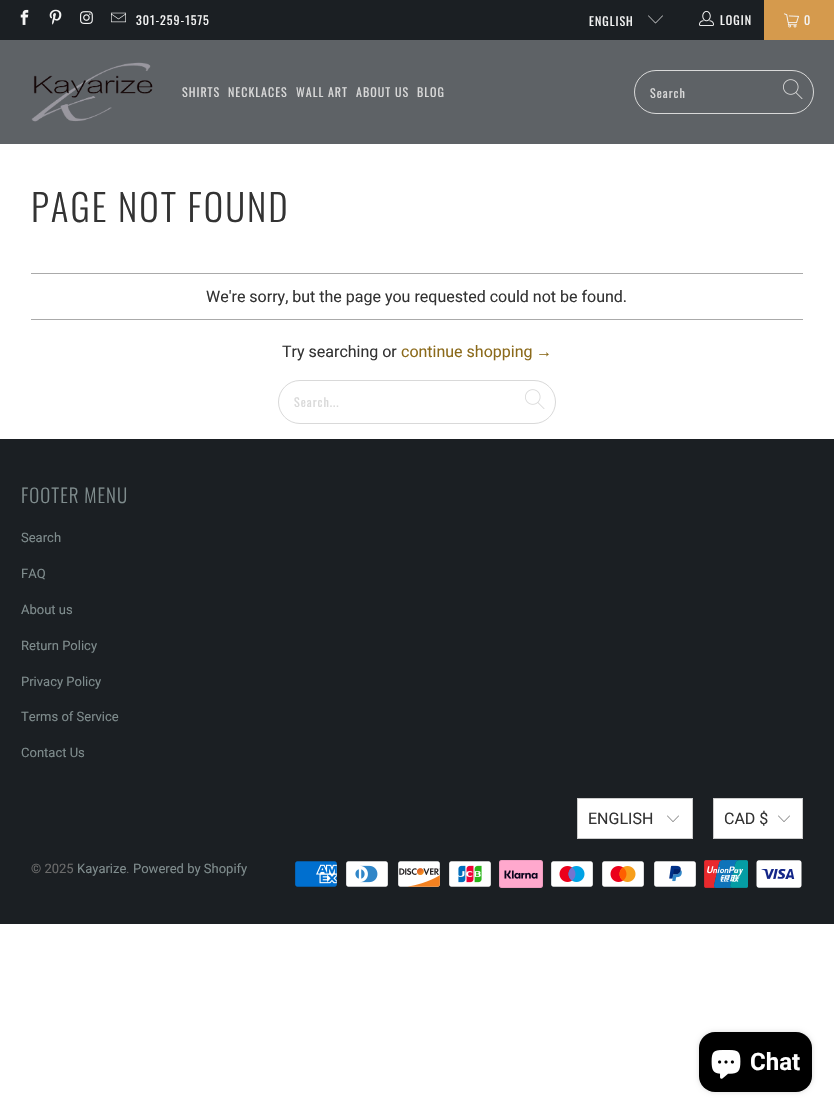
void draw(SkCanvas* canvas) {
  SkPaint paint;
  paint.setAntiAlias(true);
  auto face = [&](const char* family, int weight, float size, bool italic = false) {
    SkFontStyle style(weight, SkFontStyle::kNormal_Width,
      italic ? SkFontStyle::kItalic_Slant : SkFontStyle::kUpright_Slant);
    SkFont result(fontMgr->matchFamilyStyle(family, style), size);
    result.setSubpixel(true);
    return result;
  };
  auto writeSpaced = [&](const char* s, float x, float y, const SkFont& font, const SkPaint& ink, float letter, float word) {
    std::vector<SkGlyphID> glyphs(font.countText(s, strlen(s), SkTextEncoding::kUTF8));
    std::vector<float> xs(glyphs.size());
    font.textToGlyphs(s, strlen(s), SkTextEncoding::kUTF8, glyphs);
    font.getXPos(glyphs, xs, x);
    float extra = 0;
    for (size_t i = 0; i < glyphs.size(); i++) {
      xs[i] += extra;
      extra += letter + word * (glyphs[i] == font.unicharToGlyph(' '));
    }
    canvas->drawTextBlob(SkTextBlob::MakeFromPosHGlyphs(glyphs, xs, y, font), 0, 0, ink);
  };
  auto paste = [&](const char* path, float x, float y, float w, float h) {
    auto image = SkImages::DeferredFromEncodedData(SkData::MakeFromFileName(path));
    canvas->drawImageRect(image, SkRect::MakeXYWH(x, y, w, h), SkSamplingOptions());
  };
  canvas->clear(0xffffffff);
  paint.setColor(0xff1b1f23);
  canvas->drawRect(SkRect::MakeXYWH(0, 0, 764, 40), paint);
  paste("img/1.png", 20, 9, 9, 16);
  paste("img/2.png", 49, 9, 13, 16);
  paste("img/3.png", 80, 11, 13, 13);
  paste("img/4.png", 111, 12, 15, 11);
  paste("img/5.png", 648, 15, 15, 9);
  paste("img/6.png", 699, 10, 15, 16);
  paint.setColor(0xffd59a4d);
  canvas->drawRect(SkRect::MakeXYWH(764, 0, 70, 40), paint);
  paste("img/7.png", 784, 13, 15, 15);
  paint.setColor(0xff5e6266);
  canvas->drawRect(SkRect::MakeXYWH(0, 40, 834, 104), paint);
  paste("img/8.png", 31, 62, 122, 60);
  paint.setStroke(true);
  paint.setStrokeWidth(1);
  paint.setColor(0xffd9d9d9);
  canvas->drawRoundRect(SkRect::MakeXYWH(634.5f, 70.5f, 179, 43), 21.5f, 21.5f, paint);
  paste("img/9.png", 783, 79, 20, 20);
  paint.setStroke(false);
  paint.setColor(0xffaaaaaa);
  canvas->drawRect(SkRect::MakeXYWH(31, 273, 772, 1), paint);
  canvas->drawRect(SkRect::MakeXYWH(31, 319, 772, 1), paint);
  paint.setStroke(true);
  paint.setColor(0xffd9d9d9);
  canvas->drawRoundRect(SkRect::MakeXYWH(278.5f, 380.5f, 277, 43), 21.5f, 21.5f, paint);
  paste("img/10.png", 525, 389, 20, 20);
  paint.setStroke(false);
  paint.setColor(0xff1b1f23);
  canvas->drawRect(SkRect::MakeXYWH(0, 439, 834, 485), paint);
  paint.setColor(0xffffffff);
  canvas->drawRect(SkRect::MakeXYWH(577.5f, 798.5f, 115, 40), paint);
  paint.setStroke(true);
  paint.setColor(0xffcccccc);
  canvas->drawRect(SkRect::MakeXYWH(577.5f, 798.5f, 115, 40), paint);
  paste("img/11.png", 667, 815, 12, 7);
  paint.setStroke(false);
  paint.setColor(0xffffffff);
  canvas->drawRect(SkRect::MakeXYWH(713.5f, 798.5f, 89, 40), paint);
  paint.setStroke(true);
  paint.setColor(0xffcccccc);
  canvas->drawRect(SkRect::MakeXYWH(713.5f, 798.5f, 89, 40), paint);
  paste("img/11.png", 778, 815, 12, 7);
  paste("img/12.png", 295, 861, 42, 26);
  paste("img/13.png", 346, 861, 42, 26);
  paste("img/14.png", 398, 861, 42, 26);
  paste("img/15.png", 449, 861, 42, 26);
  paste("img/16.png", 499, 860, 44, 28);
  paste("img/17.png", 551, 861, 42, 26);
  paste("img/18.png", 602, 861, 42, 26);
  paste("img/19.png", 654, 861, 42, 26);
  paste("img/20.png", 704, 860, 44, 28);
  paste("img/21.png", 756, 860, 46, 28);
  paint.setStroke(false);
  paint.setColor(0x26000000);
  paint.setMaskFilter(SkMaskFilter::MakeBlur(kNormal_SkBlurStyle, 2.5f));
  canvas->drawRoundRect(SkRect::MakeXYWH(699, 1032, 113, 60), 16, 16, paint);
  paint.setMaskFilter(nullptr);
  paint.setColor(0xff000000);
  canvas->drawRoundRect(SkRect::MakeXYWH(699, 1032, 113, 60), 16, 16, paint);
  paste("img/22.png", 711, 1050, 30, 29);
  auto f0 = face("Oswald", 400, 12);
  paint.setColor(0xfff4f4f4);
  {
    const struct { const char* s; float x, y; } items[] = {
      {"301-259-1575", 136, 25},
      {"ENGLISH", 589, 26},
      {"LOGIN", 720, 25},
      {"0", 804, 25},
    };
    for (auto [s, x, y] : items) {
      writeSpaced(s, x, y, f0, paint, 1, 0);
    }
  }
  paint.setColor(0xffd9d9d9);
  {
    const struct { const char* s; float x, y; } items[] = {
      {"SHIRTS", 182, 97},
      {"NECKLACES", 228, 97},
      {"WALL ART", 296, 97},
      {"ABOUT US", 356, 97},
      {"BLOG", 417, 97},
      {"Search", 650, 98},
    };
    for (auto [s, x, y] : items) {
      writeSpaced(s, x, y, f0, paint, 1, 0);
    }
  }
  auto f1 = face("Oswald", 300, 37);
  paint.setColor(0xff333333);
  writeSpaced("PAGE NOT FOUND", 31, 222, f1, paint, 2, 0);
  auto f2 = face("Roboto", 400, 16);
  canvas->drawString("We're sorry, but the page you requested could not be found.", 206, 302, f2, paint);
  canvas->drawString("Try searching or", 282, 357, f2, paint);
  paint.setColor(0xff8b6a1b);
  canvas->drawString("continue shopping", 401, 357, f2, paint);
  auto f3 = face("Liberation Sans", 400, 16);
  canvas->drawString("→", 536, 357, f3, paint);
  paint.setColor(0xffd9d9d9);
  writeSpaced("Search...", 294, 407, f0, paint, 1, 0);
  auto f4 = face("Oswald", 300, 19);
  paint.setColor(0xff7f8c8d);
  writeSpaced("FOOTER MENU", 21, 503, f4, paint, 1, 0);
  auto f5 = face("Roboto", 400, 13);
  {
    const struct { const char* s; float x, y; } items[] = {
      {"Search", 21, 542},
      {"FAQ", 21, 578},
      {"About us", 21, 614},
      {"Return Policy", 21, 650},
      {"Privacy Policy", 21, 686},
      {"Terms of Service", 21, 721},
      {"Contact Us", 21, 757},
    };
    for (auto [s, x, y] : items) {
      canvas->drawString(s, x, y, f5, paint);
    }
  }
  paint.setColor(0xff333333);
  canvas->drawString("ENGLISH", 588, 824, f2, paint);
  canvas->drawString("CAD $", 724, 824, f2, paint);
  paint.setColor(0xff6b6b6b);
  canvas->drawString("© 2025", 31, 873, f5, paint);
  paint.setColor(0xff7f8c8d);
  canvas->drawString("Kayarize", 77, 873, f5, paint);
  paint.setColor(0xff6b6b6b);
  canvas->drawString(".", 126, 873, f5, paint);
  paint.setColor(0xff7f8c8d);
  canvas->drawString("Powered by Shopify", 133, 873, f5, paint);
  auto f6 = face("Roboto", 700, 24);
  paint.setColor(0xffffffff);
  canvas->drawString("Chat", 750, 1070, f6, paint);
}
